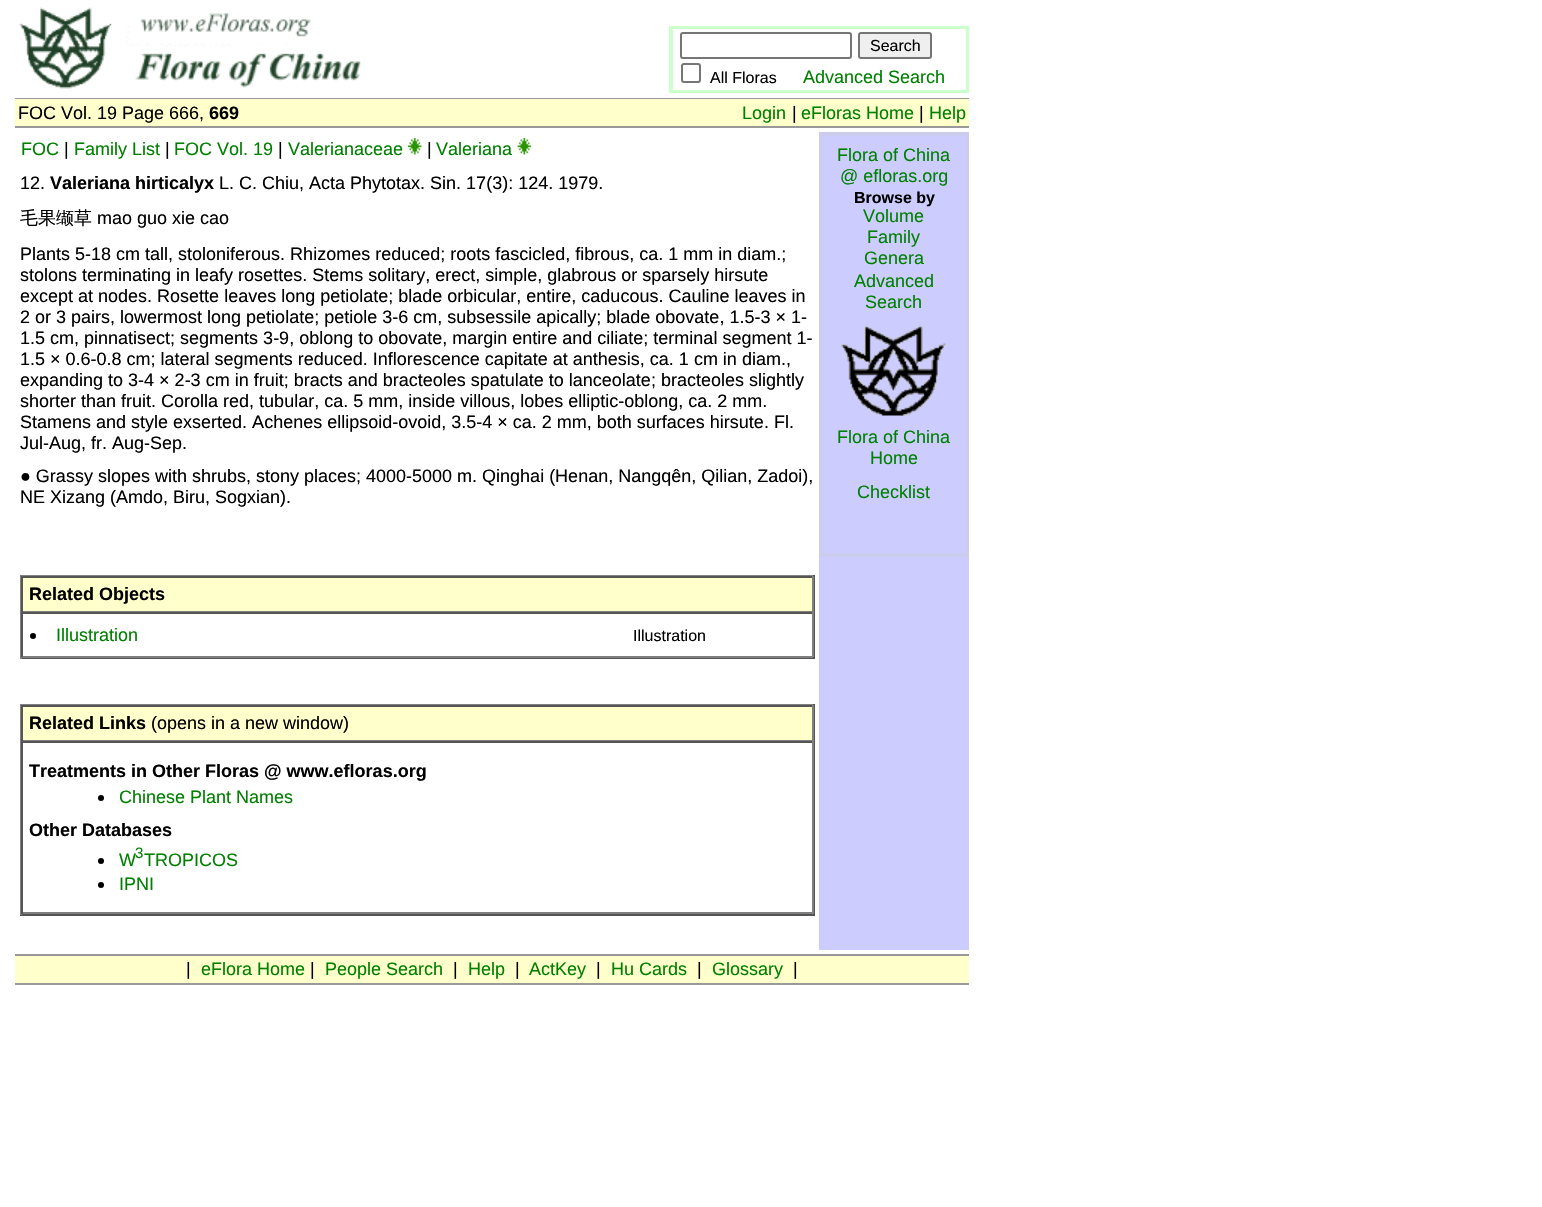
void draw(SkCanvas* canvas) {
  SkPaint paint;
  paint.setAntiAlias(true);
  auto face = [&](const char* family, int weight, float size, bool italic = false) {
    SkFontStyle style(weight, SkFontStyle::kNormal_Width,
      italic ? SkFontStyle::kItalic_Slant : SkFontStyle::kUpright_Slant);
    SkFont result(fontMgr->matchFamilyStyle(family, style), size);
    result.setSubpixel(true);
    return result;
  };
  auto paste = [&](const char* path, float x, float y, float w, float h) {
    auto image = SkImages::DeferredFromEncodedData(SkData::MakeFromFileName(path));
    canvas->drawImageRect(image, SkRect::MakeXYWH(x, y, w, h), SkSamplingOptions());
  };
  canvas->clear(0xffffffff);
  paste("img/1.png", 19, 7, 342, 82);
  paint.setStroke(true);
  paint.setStrokeWidth(2);
  paint.setColor(0xffccffcc);
  canvas->drawRect(SkRect::MakeXYWH(670, 27, 298, 65), paint);
  canvas->drawRect(SkRect::MakeXYWH(672, 28, 295, 63), paint);
  paint.setColor(0xff767676);
  canvas->drawRoundRect(SkRect::MakeXYWH(681, 33, 170, 25), 2, 2, paint);
  paint.setStroke(false);
  paint.setColor(0xffefefef);
  canvas->drawRoundRect(SkRect::MakeXYWH(859, 33, 72, 25), 2, 2, paint);
  paint.setStroke(true);
  paint.setColor(0xff767676);
  canvas->drawRoundRect(SkRect::MakeXYWH(859, 33, 72, 25), 2, 2, paint);
  canvas->drawRoundRect(SkRect::MakeXYWH(682, 64, 18, 18), 2, 2, paint);
  paint.setStroke(false);
  {
    const struct { float x, y, w, h; SkColor color; } items[] = {
      {15, 98, 954, 1, 0xff999999},
      {15, 99, 954, 27, 0xffffffcc},
      {15, 126, 954, 2, 0xff999999},
    };
    for (auto [x, y, w, h, color] : items) {
      paint.setColor(color);
      canvas->drawRect(SkRect::MakeXYWH(x, y, w, h), paint);
    }
  }
  paste("img/2.png", 408, 138, 14, 17);
  paste("img/3.png", 517, 138, 14, 17);
  {
    const struct { float x, y, w, h; SkColor color; } items[] = {
      {20, 575, 795, 1, 0xff808080},
      {813, 575, 2, 84, 0xff555555},
      {20, 657, 795, 2, 0xff555555},
      {20, 575, 2, 84, 0xff808080},
      {23, 578, 789, 33, 0xffffffcc},
      {21, 576, 792, 2, 0xff555555},
      {812, 576, 2, 36, 0xff808080},
      {21, 611, 792, 1, 0xff808080},
      {21, 576, 2, 36, 0xff555555},
      {21, 612, 792, 2, 0xff555555},
      {812, 612, 2, 45, 0xff808080},
      {21, 656, 792, 2, 0xff808080},
      {21, 612, 2, 45, 0xff555555},
    };
    for (auto [x, y, w, h, color] : items) {
      paint.setColor(color);
      canvas->drawRect(SkRect::MakeXYWH(x, y, w, h), paint);
    }
  }
  paint.setColor(0xff000000);
  canvas->drawCircle(33, 636, 3, paint);
  {
    const struct { float x, y, w, h; SkColor color; } items[] = {
      {20, 704, 795, 1, 0xff808080},
      {813, 704, 2, 211, 0xff555555},
      {20, 914, 795, 2, 0xff555555},
      {20, 704, 2, 211, 0xff808080},
      {23, 707, 789, 33, 0xffffffcc},
      {21, 705, 792, 2, 0xff555555},
      {812, 705, 2, 36, 0xff808080},
      {21, 740, 792, 1, 0xff808080},
      {21, 705, 2, 36, 0xff555555},
      {21, 741, 792, 2, 0xff555555},
      {812, 741, 2, 173, 0xff808080},
      {21, 912, 792, 2, 0xff808080},
      {21, 741, 2, 173, 0xff555555},
    };
    for (auto [x, y, w, h, color] : items) {
      paint.setColor(color);
      canvas->drawRect(SkRect::MakeXYWH(x, y, w, h), paint);
    }
  }
  paint.setColor(0xff000000);
  canvas->drawCircle(101, 798, 3, paint);
  canvas->drawCircle(101, 861, 3, paint);
  canvas->drawCircle(101, 885, 3, paint);
  paint.setColor(0xffccccff);
  canvas->drawRect(SkRect::MakeXYWH(819, 136, 150, 814), paint);
  paint.setStroke(true);
  paint.setColor(0xffccccee);
  canvas->drawRect(SkRect::MakeXYWH(820, 133, 148, 423), paint);
  canvas->drawRect(SkRect::MakeXYWH(822, 135, 145, 419), paint);
  paste("img/4.png", 841, 325, 106, 91);
  paint.setStroke(false);
  {
    const struct { float x, y, w, h; SkColor color; } items[] = {
      {15, 954, 954, 2, 0xff999999},
      {15, 956, 954, 27, 0xffffffcc},
      {15, 983, 954, 2, 0xff999999},
    };
    for (auto [x, y, w, h, color] : items) {
      paint.setColor(color);
      canvas->drawRect(SkRect::MakeXYWH(x, y, w, h), paint);
    }
  }
  auto f0 = face("Liberation Sans", 400, 16);
  paint.setColor(0xff000000);
  canvas->drawString("Search", 870, 51, f0, paint);
  canvas->drawString("All Floras", 710, 83, f0, paint);
  auto f1 = face("Liberation Sans", 400, 18);
  paint.setColor(0xff008000);
  canvas->drawString("Advanced Search", 803, 83, f1, paint);
  paint.setColor(0xff000000);
  canvas->drawString("FOC Vol. 19 Page 666,", 18, 119, f1, paint);
  auto f2 = face("Liberation Sans", 700, 18);
  canvas->drawString("669", 209, 119, f2, paint);
  paint.setColor(0xff008000);
  canvas->drawString("Login", 742, 119, f1, paint);
  paint.setColor(0xff000000);
  canvas->drawString("|", 792, 119, f1, paint);
  paint.setColor(0xff008000);
  canvas->drawString("eFloras Home", 801, 119, f1, paint);
  paint.setColor(0xff000000);
  canvas->drawString("|", 919, 119, f1, paint);
  paint.setColor(0xff008000);
  canvas->drawString("Help", 929, 119, f1, paint);
  canvas->drawString("FOC", 21, 155, f1, paint);
  paint.setColor(0xff000000);
  canvas->drawString("|", 64, 155, f1, paint);
  paint.setColor(0xff008000);
  canvas->drawString("Family List", 74, 155, f1, paint);
  paint.setColor(0xff000000);
  canvas->drawString("|", 165, 155, f1, paint);
  paint.setColor(0xff008000);
  canvas->drawString("FOC Vol. 19", 174, 155, f1, paint);
  paint.setColor(0xff000000);
  canvas->drawString("|", 278, 155, f1, paint);
  paint.setColor(0xff008000);
  canvas->drawString("Valerianaceae", 288, 155, f1, paint);
  paint.setColor(0xff000000);
  canvas->drawString("|", 427, 155, f1, paint);
  paint.setColor(0xff008000);
  canvas->drawString("Valeriana", 436, 155, f1, paint);
  paint.setColor(0xff000000);
  canvas->drawString("12.", 20, 189, f1, paint);
  canvas->drawString("Valeriana hirticalyx", 50, 189, f2, paint);
  canvas->drawString("L. C. Chiu, Acta Phytotax. Sin. 17(3): 124. 1979.", 219, 189, f1, paint);
  auto f3 = face("WenQuanYi Zen Hei", 500, 18);
  canvas->drawString("毛果缬草", 20, 224, f3, paint);
  {
    const struct { const char* s; float x, y; } items[] = {
      {"mao guo xie cao", 97, 224},
      {"Plants 5-18 cm tall, stoloniferous. Rhizomes reduced; roots fascicled, fibrous, ca. 1 mm in diam.;", 20, 260},
      {"stolons terminating in leafy rosettes. Stems solitary, erect, simple, glabrous or sparsely hirsute", 20, 281},
      {"except at nodes. Rosette leaves long petiolate; blade orbicular, entire, caducous. Cauline leaves in", 20, 302},
      {"2 or 3 pairs, lowermost long petiolate; petiole 3-6 cm, subsessile apically; blade obovate, 1.5-3 × 1-", 20, 323},
      {"1.5 cm, pinnatisect; segments 3-9, oblong to obovate, margin entire and ciliate; terminal segment 1-", 20, 344},
      {"1.5 × 0.6-0.8 cm; lateral segments reduced. Inflorescence capitate at anthesis, ca. 1 cm in diam.,", 20, 365},
      {"expanding to 3-4 × 2-3 cm in fruit; bracts and bracteoles spatulate to lanceolate; bracteoles slightly", 20, 386},
      {"shorter than fruit. Corolla red, tubular, ca. 5 mm, inside villous, lobes elliptic-oblong, ca. 2 mm.", 20, 407},
      {"Stamens and style exserted. Achenes ellipsoid-ovoid, 3.5-4 × ca. 2 mm, both surfaces hirsute. Fl.", 20, 428},
      {"Jul-Aug, fr. Aug-Sep.", 20, 449},
      {"● Grassy slopes with shrubs, stony places; 4000-5000 m. Qinghai (Henan, Nangqên, Qilian, Zadoi),", 20, 482},
      {"NE Xizang (Amdo, Biru, Sogxian).", 20, 503},
    };
    for (auto [s, x, y] : items) {
      canvas->drawString(s, x, y, f1, paint);
    }
  }
  canvas->drawString("Related Objects", 29, 600, f2, paint);
  paint.setColor(0xff008000);
  canvas->drawString("Illustration", 56, 641, f1, paint);
  paint.setColor(0xff000000);
  canvas->drawString("Illustration", 633, 641, f0, paint);
  canvas->drawString("Related Links", 29, 729, f2, paint);
  canvas->drawString("(opens in a new window)", 151, 729, f1, paint);
  canvas->drawString("Treatments in Other Floras @ www.efloras.org", 29, 777, f2, paint);
  paint.setColor(0xff008000);
  canvas->drawString("Chinese Plant Names", 119, 803, f1, paint);
  paint.setColor(0xff000000);
  canvas->drawString("Other Databases", 29, 836, f2, paint);
  paint.setColor(0xff008000);
  canvas->drawString("W", 119, 866, f1, paint);
  auto f4 = face("Liberation Sans", 400, 15);
  canvas->drawString("3", 135, 858, f4, paint);
  {
    const struct { const char* s; float x, y; } items[] = {
      {"TROPICOS", 144, 866},
      {"IPNI", 119, 890},
      {"Flora of China", 837, 161},
      {"@ efloras.org", 840, 182},
    };
    for (auto [s, x, y] : items) {
      canvas->drawString(s, x, y, f1, paint);
    }
  }
  auto f5 = face("Liberation Sans", 700, 16);
  paint.setColor(0xff000000);
  canvas->drawString("Browse by", 854, 203, f5, paint);
  paint.setColor(0xff008000);
  {
    const struct { const char* s; float x, y; } items[] = {
      {"Volume", 863, 222},
      {"Family", 867, 243},
      {"Genera", 864, 264},
      {"Advanced", 854, 287},
      {"Search", 865, 308},
      {"Flora of China", 837, 443},
      {"Home", 870, 464},
      {"Checklist", 857, 498},
    };
    for (auto [s, x, y] : items) {
      canvas->drawString(s, x, y, f1, paint);
    }
  }
  paint.setColor(0xff000000);
  canvas->drawString("|", 186, 975, f1, paint);
  paint.setColor(0xff008000);
  canvas->drawString("eFlora Home", 201, 975, f1, paint);
  paint.setColor(0xff000000);
  canvas->drawString("|", 310, 975, f1, paint);
  paint.setColor(0xff008000);
  canvas->drawString("People Search", 325, 975, f1, paint);
  paint.setColor(0xff000000);
  canvas->drawString("|", 453, 975, f1, paint);
  paint.setColor(0xff008000);
  canvas->drawString("Help", 468, 975, f1, paint);
  paint.setColor(0xff000000);
  canvas->drawString("|", 515, 975, f1, paint);
  paint.setColor(0xff008000);
  canvas->drawString("ActKey", 529, 975, f1, paint);
  paint.setColor(0xff000000);
  canvas->drawString("|", 596, 975, f1, paint);
  paint.setColor(0xff008000);
  canvas->drawString("Hu Cards", 611, 975, f1, paint);
  paint.setColor(0xff000000);
  canvas->drawString("|", 697, 975, f1, paint);
  paint.setColor(0xff008000);
  canvas->drawString("Glossary", 712, 975, f1, paint);
  paint.setColor(0xff000000);
  canvas->drawString("|", 793, 975, f1, paint);
}
